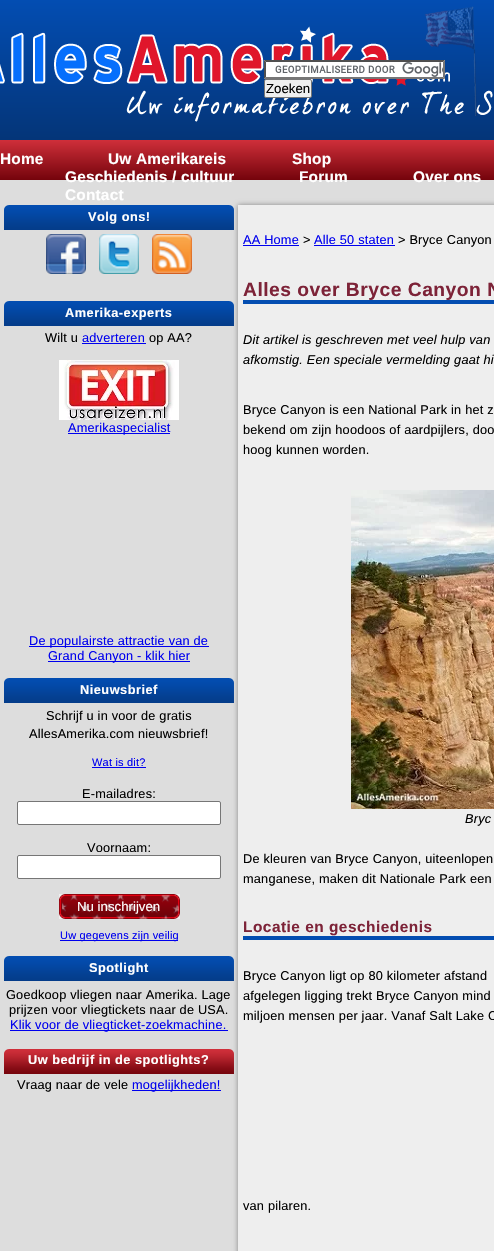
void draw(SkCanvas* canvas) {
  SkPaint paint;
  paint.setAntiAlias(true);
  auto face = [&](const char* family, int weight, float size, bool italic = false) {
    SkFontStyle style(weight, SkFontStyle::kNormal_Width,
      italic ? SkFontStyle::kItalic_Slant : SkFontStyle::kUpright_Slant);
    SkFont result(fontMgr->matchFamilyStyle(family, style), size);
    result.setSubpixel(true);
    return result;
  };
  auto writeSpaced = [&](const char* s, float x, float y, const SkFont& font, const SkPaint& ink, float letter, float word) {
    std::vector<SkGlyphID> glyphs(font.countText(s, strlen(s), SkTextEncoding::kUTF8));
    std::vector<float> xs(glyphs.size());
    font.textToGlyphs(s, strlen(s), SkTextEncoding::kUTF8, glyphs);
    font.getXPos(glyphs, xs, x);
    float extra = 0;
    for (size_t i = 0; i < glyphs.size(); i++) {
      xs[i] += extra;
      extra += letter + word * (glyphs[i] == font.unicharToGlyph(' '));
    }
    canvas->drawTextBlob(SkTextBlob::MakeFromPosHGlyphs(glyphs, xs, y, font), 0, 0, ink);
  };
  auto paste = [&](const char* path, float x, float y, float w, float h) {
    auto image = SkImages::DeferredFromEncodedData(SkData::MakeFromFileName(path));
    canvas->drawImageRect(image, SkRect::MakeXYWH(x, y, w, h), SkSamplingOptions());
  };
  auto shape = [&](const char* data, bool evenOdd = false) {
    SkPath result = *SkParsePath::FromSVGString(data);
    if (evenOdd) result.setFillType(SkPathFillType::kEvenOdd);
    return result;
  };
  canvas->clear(0xffdddddd);
  {
    const SkColor colors[] = {0xff034db2, 0xff043578};
    const float stops[] = {0, 1};
    const SkPoint ends[] = {{247, 0}, {247, 140}};
    paint.setShader(SkGradientShader::MakeLinear(ends, colors, stops, 2, SkTileMode::kClamp));
    paint.setAlpha(255);
  }
  canvas->drawRect(SkRect::MakeXYWH(0, 0, 494, 140), paint);
  paste("img/1.png", 0, 6, 493, 116);
  paint.setShader(nullptr);
  paint.setColor(0xffffffff);
  canvas->drawRect(SkRect::MakeXYWH(264, 60, 181, 19), paint);
  paste("img/2.png", 275, 62, 168, 15);
  paint.setColor(0xff4f4f4f);
  canvas->drawPath(shape("M264 60H445L443 62H266Z"), paint);
  paint.setColor(0xff767676);
  canvas->drawPath(shape("M445 60V79L443 77V62Z"), paint);
  canvas->drawPath(shape("M445 79H264L266 77H443Z"), paint);
  paint.setColor(0xff4f4f4f);
  canvas->drawPath(shape("M264 79V60L266 62V77Z"), paint);
  paint.setColor(0xffefefef);
  canvas->drawRoundRect(SkRect::MakeXYWH(264.5f, 79.5f, 47, 18), 1.5f, 1.5f, paint);
  paint.setStroke(true);
  paint.setStrokeWidth(1);
  paint.setColor(0xff767676);
  canvas->drawRoundRect(SkRect::MakeXYWH(264.5f, 79.5f, 47, 18), 1.5f, 1.5f, paint);
  paint.setStroke(false);
  {
    const SkColor colors[] = {0xffcf2f3a, 0xff75040c};
    const float stops[] = {0, 0.99f};
    const SkPoint ends[] = {{247, 140}, {247, 180}};
    paint.setShader(SkGradientShader::MakeLinear(ends, colors, stops, 2, SkTileMode::kClamp));
    paint.setAlpha(255);
  }
  canvas->drawRect(SkRect::MakeXYWH(0, 140, 494, 40), paint);
  paste("img/3.png", 4, 205, 230, 25);
  paste("img/4.png", 46, 234, 40, 40);
  paste("img/5.png", 99, 234, 40, 40);
  paste("img/6.png", 152, 234, 40, 40);
  paste("img/3.png", 4, 301, 230, 25);
  paint.setShader(nullptr);
  paint.setColor(0xff0000ee);
  canvas->drawRect(SkRect::MakeXYWH(82, 343, 64, 1), paint);
  paste("img/7.png", 59, 360, 120, 60);
  {
    const struct { float x, y, w, h; SkColor color; } items[] = {
      {68, 433, 102, 1, 0xff0000ee},
      {29, 646, 180, 1, 0xff0000ee},
      {48, 661, 142, 1, 0xff0000ee},
    };
    for (auto [x, y, w, h, color] : items) {
      paint.setColor(color);
      canvas->drawRect(SkRect::MakeXYWH(x, y, w, h), paint);
    }
  }
  paste("img/3.png", 4, 678, 230, 25);
  canvas->drawRect(SkRect::MakeXYWH(92, 767, 54, 1), paint);
  paint.setColor(0xffffffff);
  canvas->drawRoundRect(SkRect::MakeXYWH(17.5f, 801.5f, 203, 23), 1.5f, 1.5f, paint);
  paint.setStroke(true);
  paint.setColor(0xff767676);
  canvas->drawRoundRect(SkRect::MakeXYWH(17.5f, 801.5f, 203, 23), 1.5f, 1.5f, paint);
  paint.setStroke(false);
  paint.setColor(0xffffffff);
  canvas->drawRoundRect(SkRect::MakeXYWH(17.5f, 855.5f, 203, 23), 1.5f, 1.5f, paint);
  paint.setStroke(true);
  paint.setColor(0xff767676);
  canvas->drawRoundRect(SkRect::MakeXYWH(17.5f, 855.5f, 203, 23), 1.5f, 1.5f, paint);
  paint.setStroke(false);
  paint.setColor(0xffefefef);
  canvas->drawRect(SkRect::MakeXYWH(59, 894, 121, 25), paint);
  paste("img/8.png", 59, 894, 121, 25);
  paint.setColor(0xff0000ee);
  canvas->drawRect(SkRect::MakeXYWH(60, 940, 118, 1), paint);
  paste("img/3.png", 4, 956, 230, 25);
  canvas->drawRect(SkRect::MakeXYWH(10, 1030, 218, 1), paint);
  paste("img/9.png", 4, 1049, 230, 25);
  canvas->drawRect(SkRect::MakeXYWH(132, 1090, 89, 1), paint);
  paint.setColor(0xff888888);
  paint.setMaskFilter(SkMaskFilter::MakeBlur(kNormal_SkBlurStyle, 2.5f));
  canvas->drawRect(SkRect::MakeXYWH(238, 205, 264, 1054), paint);
  paint.setMaskFilter(nullptr);
  {
    const struct { float x, y, w, h; SkColor color; } items[] = {
      {238, 205, 256, 1046, 0xffeeeeee},
      {243, 245, 56, 1, 0xff0000ee},
      {314, 245, 81, 1, 0xff0000ee},
      {243, 300, 251, 4, 0xff034db1},
    };
    for (auto [x, y, w, h, color] : items) {
      paint.setColor(color);
      canvas->drawRect(SkRect::MakeXYWH(x, y, w, h), paint);
    }
  }
  paste("img/10.png", 351, 490, 143, 319);
  canvas->drawRect(SkRect::MakeXYWH(243, 936, 251, 4), paint);
  auto f0 = face("Liberation Sans", 400, 13.25f);
  paint.setColor(0xff000000);
  canvas->drawString("Zoeken", 266, 93, f0, paint);
  auto f1 = face("Liberation Sans", 700, 15.4f);
  paint.setColor(0xffffffff);
  {
    const struct { const char* s; float x, y; } items[] = {
      {"Home", 0, 164},
      {"Uw Amerikareis", 108, 164},
      {"Shop", 292, 164},
      {"Geschiedenis / cultuur", 65, 182},
      {"Forum", 299, 182},
      {"Over ons", 413, 182},
      {"Contact", 65, 200},
    };
    for (auto [s, x, y] : items) {
      writeSpaced(s, x, y, f1, paint, 0.2f, 0);
    }
  }
  auto f2 = face("Liberation Sans", 700, 12.75f);
  writeSpaced("Volg ons!", 88, 221, f2, paint, 0.5f, 0);
  writeSpaced("Amerika-experts", 65, 317, f2, paint, 0.5f, 0);
  auto f3 = face("Liberation Sans", 400, 12.75f);
  paint.setColor(0xff000000);
  writeSpaced("Wilt u", 45, 342, f3, paint, 0.2f, 0);
  paint.setColor(0xff0000ee);
  writeSpaced("adverteren", 82, 342, f3, paint, 0.2f, 0);
  paint.setColor(0xff000000);
  writeSpaced("op AA?", 149, 342, f3, paint, 0.2f, 0);
  paint.setColor(0xff0000ee);
  {
    const struct { const char* s; float x, y; } items[] = {
      {"Amerikaspecialist", 68, 432},
      {"De populairste attractie van de", 29, 645},
      {"Grand Canyon - klik hier", 48, 660},
    };
    for (auto [s, x, y] : items) {
      writeSpaced(s, x, y, f3, paint, 0.2f, 0);
    }
  }
  paint.setColor(0xffffffff);
  writeSpaced("Nieuwsbrief", 80, 694, f2, paint, 0.5f, 0);
  paint.setColor(0xff000000);
  writeSpaced("Schrijf u in voor de gratis", 46, 720, f3, paint, 0.2f, 0);
  writeSpaced("AllesAmerika.com nieuwsbrief!", 29, 738, f3, paint, 0.2f, 0);
  auto f4 = face("Liberation Sans", 400, 11);
  paint.setColor(0xff0000ee);
  writeSpaced("Wat is dit?", 92, 766, f4, paint, 0.2f, 0);
  paint.setColor(0xff000000);
  writeSpaced("E-mailadres:", 82, 798, f3, paint, 0.2f, 0);
  writeSpaced("Voornaam:", 87, 852, f3, paint, 0.2f, 0);
  paint.setColor(0xffffffff);
  canvas->drawString("Nu inschrijven", 77, 911, f0, paint);
  paint.setColor(0xff0000ee);
  writeSpaced("Uw gegevens zijn veilig", 60, 939, f4, paint, 0.2f, 0);
  paint.setColor(0xffffffff);
  writeSpaced("Spotlight", 89, 972, f2, paint, 0.5f, 0);
  paint.setColor(0xff000000);
  writeSpaced("Goedkoop vliegen naar Amerika. Lage", 6, 999, f3, paint, 0.2f, 0);
  writeSpaced("prijzen voor vliegtickets naar de USA.", 9, 1014, f3, paint, 0.2f, 0);
  paint.setColor(0xff0000ee);
  writeSpaced("Klik voor de vliegticket-zoekmachine.", 10, 1029, f3, paint, 0.2f, 0);
  paint.setColor(0xffffffff);
  writeSpaced("Uw bedrijf in de spotlights?", 28, 1064, f2, paint, 0.5f, 0);
  paint.setColor(0xff000000);
  writeSpaced("Vraag naar de vele", 17, 1089, f3, paint, 0.2f, 0);
  paint.setColor(0xff0000ee);
  writeSpaced("mogelijkheden!", 132, 1089, f3, paint, 0.2f, 0);
  writeSpaced("AA Home", 243, 244, f3, paint, 0.2f, 0);
  paint.setColor(0xff000000);
  writeSpaced(">", 303, 244, f3, paint, 0.2f, 0);
  paint.setColor(0xff0000ee);
  writeSpaced("Alle 50 staten", 314, 244, f3, paint, 0.2f, 0);
  paint.setColor(0xff000000);
  writeSpaced("> Bryce Canyon", 398, 244, f3, paint, 0.2f, 0);
  auto f5 = face("Liberation Sans", 700, 19.25f);
  paint.setColor(0xff7d2338);
  writeSpaced("Alles over Bryce Canyon N", 243, 296, f5, paint, 0.5f, 0);
  auto f6 = face("Liberation Sans", 400, 12.75f, true);
  paint.setColor(0xff000000);
  writeSpaced("Dit artikel is geschreven met veel hulp van", 243, 344, f6, paint, 0.2f, 0);
  writeSpaced("afkomstig. Een speciale vermelding gaat hi", 243, 364, f6, paint, 0.2f, 0);
  {
    const struct { const char* s; float x, y; } items[] = {
      {"Bryce Canyon is een National Park in het z", 243, 414},
      {"bekend om zijn hoodoos of aardpijlers, doo", 243, 434},
      {"hoog kunnen worden.", 243, 454},
    };
    for (auto [s, x, y] : items) {
      writeSpaced(s, x, y, f3, paint, 0.2f, 0);
    }
  }
  writeSpaced("Bryc", 465, 823, f6, paint, 0.2f, 0);
  writeSpaced("De kleuren van Bryce Canyon, uiteenlopen", 243, 863, f3, paint, 0.2f, 0);
  writeSpaced("manganese, maken dit Nationale Park een", 243, 883, f3, paint, 0.2f, 0);
  paint.setColor(0xff7d2338);
  writeSpaced("Locatie en geschiedenis", 243, 932, f1, paint, 0.5f, 0);
  paint.setColor(0xff000000);
  {
    const struct { const char* s; float x, y; } items[] = {
      {"Bryce Canyon ligt op 80 kilometer afstand", 243, 980},
      {"afgelegen ligging trekt Bryce Canyon mind", 243, 1000},
      {"miljoen mensen per jaar. Vanaf Salt Lake C", 243, 1020},
      {"van pilaren.", 243, 1210},
    };
    for (auto [s, x, y] : items) {
      writeSpaced(s, x, y, f3, paint, 0.2f, 0);
    }
  }
}
